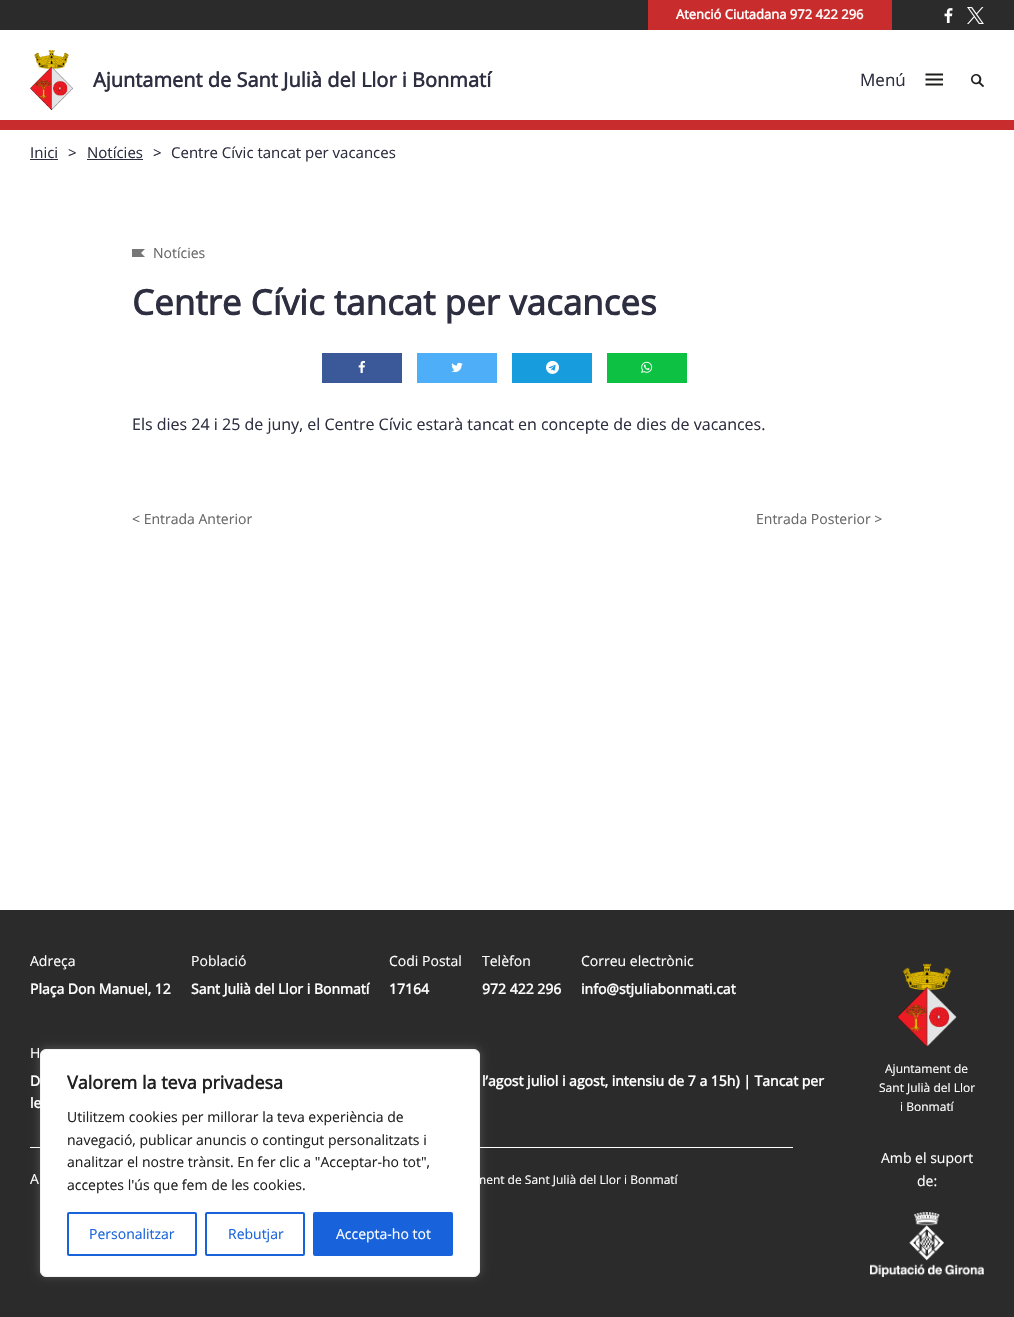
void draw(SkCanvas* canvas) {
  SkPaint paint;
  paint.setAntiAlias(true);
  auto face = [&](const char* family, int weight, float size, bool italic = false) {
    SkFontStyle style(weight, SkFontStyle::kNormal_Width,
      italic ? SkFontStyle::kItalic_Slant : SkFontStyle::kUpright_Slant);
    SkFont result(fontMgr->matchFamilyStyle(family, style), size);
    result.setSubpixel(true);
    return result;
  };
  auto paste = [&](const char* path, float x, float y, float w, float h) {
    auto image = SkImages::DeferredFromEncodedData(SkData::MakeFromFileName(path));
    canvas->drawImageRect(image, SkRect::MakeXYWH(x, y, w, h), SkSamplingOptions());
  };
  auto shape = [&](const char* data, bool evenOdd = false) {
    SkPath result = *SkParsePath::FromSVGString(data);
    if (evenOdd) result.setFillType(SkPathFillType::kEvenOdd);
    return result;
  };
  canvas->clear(0xffffffff);
  {
    const struct { float x, y, w, h; SkColor color; } items[] = {
      {0, 120, 1014, 10, 0xffc92c2c},
      {0, 0, 1014, 30, 0xff2b2b2b},
      {648, 0, 244, 30, 0xffc92c2c},
    };
    for (auto [x, y, w, h, color] : items) {
      paint.setColor(color);
      canvas->drawRect(SkRect::MakeXYWH(x, y, w, h), paint);
    }
  }
  paste("img/1.png", 944, 8, 9, 15);
  paste("img/2.png", 967, 7, 17, 17);
  paste("img/3.png", 30, 50, 43, 60);
  paint.setStroke(true);
  paint.setStrokeWidth(2);
  paint.setColor(0xff1d1d1b);
  canvas->drawPath(shape("M925.5 74.5H943M925.5 79.5H943M925.5 84.5H943"), paint);
  paste("img/4.png", 971, 74, 13, 13);
  paint.setStroke(false);
  paint.setColor(0xff2d2e40);
  canvas->drawRect(SkRect::MakeXYWH(30, 159, 28, 1), paint);
  canvas->drawRect(SkRect::MakeXYWH(87, 159, 56, 1), paint);
  paste("img/5.png", 132, 249, 13, 8);
  paint.setColor(0xff3b5998);
  canvas->drawRect(SkRect::MakeXYWH(322, 353, 80, 30), paint);
  paste("img/6.png", 358, 360, 7, 13);
  paint.setColor(0xff4eaef8);
  canvas->drawRect(SkRect::MakeXYWH(417, 353, 80, 30), paint);
  paste("img/7.png", 451, 362, 12, 11);
  paint.setColor(0xff179cde);
  canvas->drawRect(SkRect::MakeXYWH(512, 353, 80, 30), paint);
  paste("img/8.png", 546, 360, 13, 14);
  paint.setColor(0xff0dc143);
  canvas->drawRect(SkRect::MakeXYWH(607, 353, 80, 30), paint);
  paste("img/9.png", 641, 361, 12, 12);
  paint.setColor(0xff2b2b2b);
  canvas->drawRect(SkRect::MakeXYWH(0, 910, 1014, 407), paint);
  paste("img/10.png", 897, 963, 60, 84);
  paint.setColor(0xffffffff);
  canvas->drawRect(SkRect::MakeXYWH(30, 1147, 763, 1), paint);
  paste("img/11.png", 870, 1212, 114, 65);
  paint.setColor(0x4dacabab);
  paint.setMaskFilter(SkMaskFilter::MakeBlur(kNormal_SkBlurStyle, 5));
  canvas->drawRoundRect(SkRect::MakeXYWH(40, 1048, 440, 228), 6, 6, paint);
  paint.setMaskFilter(nullptr);
  paint.setColor(0xffffffff);
  canvas->drawRoundRect(SkRect::MakeXYWH(40.5f, 1049.5f, 439, 227), 5.5f, 5.5f, paint);
  paint.setStroke(true);
  paint.setStrokeWidth(1);
  paint.setColor(0xfff4f4f4);
  canvas->drawRoundRect(SkRect::MakeXYWH(40.5f, 1049.5f, 439, 227), 5.5f, 5.5f, paint);
  paint.setStrokeWidth(2);
  paint.setColor(0xff1863dc);
  canvas->drawRoundRect(SkRect::MakeXYWH(68, 1213, 128, 42), 1, 1, paint);
  canvas->drawRoundRect(SkRect::MakeXYWH(206, 1213, 98, 42), 1, 1, paint);
  paint.setStroke(false);
  canvas->drawRoundRect(SkRect::MakeXYWH(314, 1213, 138, 42), 1, 1, paint);
  paint.setStroke(true);
  canvas->drawRoundRect(SkRect::MakeXYWH(314, 1213, 138, 42), 1, 1, paint);
  auto f0 = face("Open Sans", 700, 13);
  paint.setStroke(false);
  paint.setColor(0xffffffff);
  canvas->drawString("Atenció Ciutadana 972 422 296", 676, 19, f0, paint);
  auto f1 = face("Open Sans", 700, 20);
  paint.setColor(0xff2d2e40);
  canvas->drawString("Ajuntament de Sant Julià del Llor i Bonmatí", 93, 87, f1, paint);
  auto f2 = face("Open Sans", 400, 17);
  canvas->drawString("Menú", 860, 86, f2, paint);
  auto f3 = face("Open Sans", 400, 15);
  {
    const struct { const char* s; float x, y; } items[] = {
      {"Inici", 30, 158},
      {">", 68, 158},
      {"Notícies", 87, 158},
      {">", 153, 158},
      {"Centre Cívic tancat per vacances", 171, 158},
    };
    for (auto [s, x, y] : items) {
      canvas->drawString(s, x, y, f3, paint);
    }
  }
  auto f4 = face("Open Sans", 400, 14);
  paint.setColor(0xff676767);
  canvas->drawString("Notícies", 153, 258, f4, paint);
  auto f5 = face("Open Sans", 700, 35);
  paint.setColor(0xff2d2e40);
  canvas->drawString("Centre Cívic tancat per vacances", 132, 315, f5, paint);
  auto f6 = face("Open Sans", 400, 16);
  canvas->drawString("Els dies 24 i 25 de juny, el Centre Cívic estarà tancat en concepte de dies de vacances.", 132, 430, f6, paint);
  paint.setColor(0xff676767);
  canvas->drawString("< Entrada Anterior", 132, 524, f4, paint);
  canvas->drawString("Entrada Posterior >", 756, 524, f4, paint);
  paint.setColor(0xffffffff);
  canvas->drawString("Adreça", 30, 966, f4, paint);
  auto f7 = face("Open Sans", 700, 14);
  canvas->drawString("Plaça Don Manuel, 12", 30, 994, f7, paint);
  canvas->drawString("Població", 191, 966, f4, paint);
  canvas->drawString("Sant Julià del Llor i Bonmatí", 191, 994, f7, paint);
  canvas->drawString("Codi Postal", 389, 966, f4, paint);
  canvas->drawString("17164", 389, 994, f7, paint);
  canvas->drawString("Telèfon", 482, 966, f4, paint);
  canvas->drawString("972 422 296", 482, 994, f7, paint);
  canvas->drawString("Correu electrònic", 581, 966, f4, paint);
  canvas->drawString("info@stjuliabonmati.cat", 581, 994, f7, paint);
  canvas->drawString("H", 30, 1058, f4, paint);
  {
    const struct { const char* s; float x, y; } items[] = {
      {"D", 30, 1086},
      {"l’agost juliol i agost, intensiu de 7 a 15h) | Tancat per", 482, 1086},
      {"le", 30, 1108},
    };
    for (auto [s, x, y] : items) {
      canvas->drawString(s, x, y, f7, paint);
    }
  }
  auto f8 = face("Open Sans", 400, 12);
  {
    const struct { const char* s; float x, y; } items[] = {
      {"Ajuntament de", 885, 1073},
      {"Sant Julià del Llor", 879, 1092},
      {"i Bonmatí", 900, 1111},
    };
    for (auto [s, x, y] : items) {
      canvas->drawString(s, x, y, f8, paint);
    }
  }
  canvas->drawString("A", 30, 1184, f4, paint);
  canvas->drawString("ment de Sant Julià del Llor i Bonmatí", 475, 1184, f8, paint);
  canvas->drawString("Amb el suport", 881, 1163, f4, paint);
  canvas->drawString("de:", 917, 1186, f4, paint);
  auto f9 = face("Open Sans", 700, 18);
  paint.setColor(0xff212121);
  canvas->drawString("Valorem la teva privadesa", 67, 1089, f9, paint);
  {
    const struct { const char* s; float x, y; } items[] = {
      {"Utilitzem cookies per millorar la teva experiència de", 67, 1122},
      {"navegació, publicar anuncis o contingut personalitzats i", 67, 1145},
      {"analitzar el nostre trànsit. En fer clic a \"Acceptar-ho tot\",", 67, 1167},
      {"acceptes l'ús que fem de les cookies.", 67, 1190},
    };
    for (auto [s, x, y] : items) {
      canvas->drawString(s, x, y, f4, paint);
    }
  }
  paint.setColor(0xff1863dc);
  canvas->drawString("Personalitzar", 89, 1239, f4, paint);
  canvas->drawString("Rebutjar", 228, 1239, f4, paint);
  paint.setColor(0xffffffff);
  canvas->drawString("Accepta-ho tot", 336, 1239, f4, paint);
}
